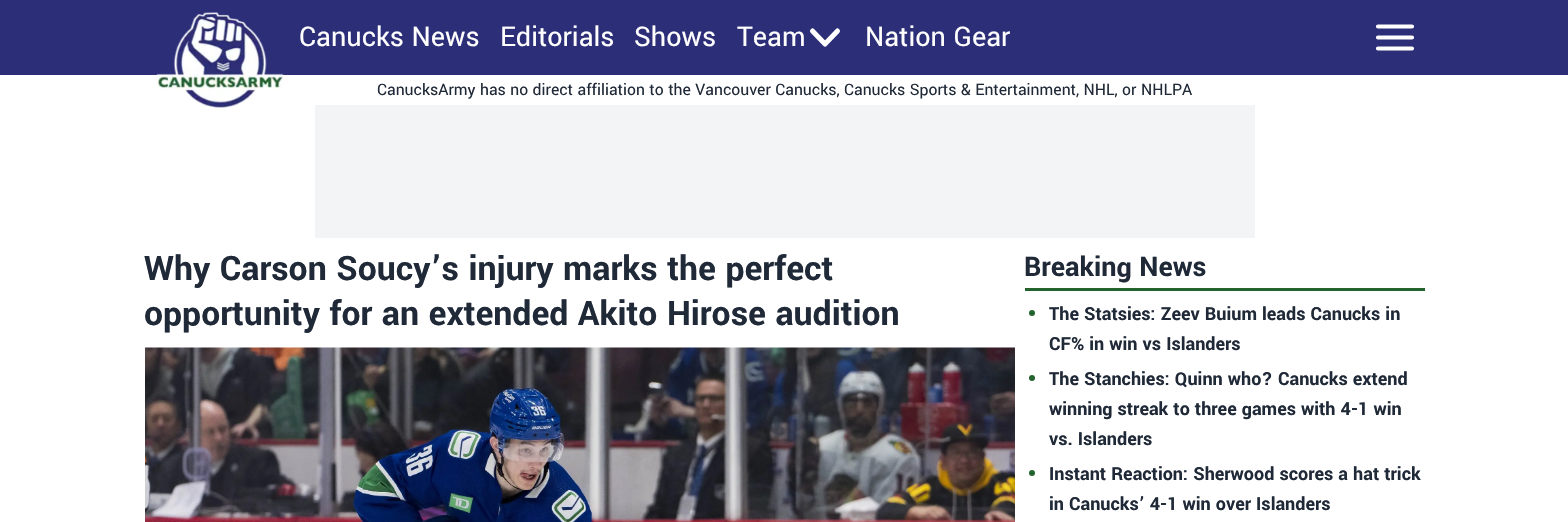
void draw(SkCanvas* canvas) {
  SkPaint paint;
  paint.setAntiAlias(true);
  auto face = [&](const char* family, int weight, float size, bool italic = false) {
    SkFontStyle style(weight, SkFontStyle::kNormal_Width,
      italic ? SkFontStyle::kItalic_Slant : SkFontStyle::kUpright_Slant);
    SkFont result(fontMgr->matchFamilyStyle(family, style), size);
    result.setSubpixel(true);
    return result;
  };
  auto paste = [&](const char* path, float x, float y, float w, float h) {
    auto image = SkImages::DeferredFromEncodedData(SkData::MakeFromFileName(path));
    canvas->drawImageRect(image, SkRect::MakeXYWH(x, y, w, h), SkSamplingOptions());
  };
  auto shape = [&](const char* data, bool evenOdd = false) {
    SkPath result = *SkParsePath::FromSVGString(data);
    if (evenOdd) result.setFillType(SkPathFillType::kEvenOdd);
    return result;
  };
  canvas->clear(0xffffffff);
  paint.setColor(0xff2c2e77);
  canvas->drawRect(SkRect::MakeXYWH(0, 0, 1568, 75), paint);
  paste("img/1.png", 156, 12, 128, 97);
  paint.setStroke(true);
  paint.setStrokeWidth(5);
  paint.setStrokeCap(SkPaint::kRound_Cap);
  paint.setStrokeJoin(SkPaint::kRound_Join);
  paint.setColor(0xffffffff);
  canvas->drawPath(shape("M837.5 31L825 44L812.5 31"), paint);
  paint.setStrokeWidth(4.2f);
  canvas->drawPath(shape("M1378 26.5H1412M1378 37.5H1412M1378 48.5H1412"), paint);
  paint.setStroke(false);
  paint.setColor(0xfff3f4f6);
  canvas->drawRect(SkRect::MakeXYWH(315, 105, 940, 133), paint);
  paste("img/2.png", 145, 347, 870, 175);
  paint.setColor(0xff24632e);
  canvas->drawRect(SkRect::MakeXYWH(1025, 288, 400, 3), paint);
  canvas->drawCircle(1032, 313, 3, paint);
  canvas->drawCircle(1032, 378, 3, paint);
  canvas->drawCircle(1032, 473, 3, paint);
  auto f0 = face("Yantramanav", 400, 30);
  paint.setColor(0xffffffff);
  {
    const struct { const char* s; float x, y; } items[] = {
      {"Canucks News", 299, 46},
      {"Editorials", 500, 46},
      {"Shows", 634, 46},
      {"Team", 737, 46},
      {"Nation Gear", 865, 46},
    };
    for (auto [s, x, y] : items) {
      canvas->drawString(s, x, y, f0, paint);
    }
  }
  auto f1 = face("Yantramanav", 400, 17.5f);
  paint.setColor(0xff1f2937);
  canvas->drawString("CanucksArmy has no direct affiliation to the Vancouver Canucks, Canucks Sports & Entertainment, NHL, or NHLPA", 377, 95, f1, paint);
  auto f2 = face("Yantramanav", 700, 37.5f);
  canvas->drawString("Why Carson Soucy’s injury marks the perfect", 144, 280, f2, paint);
  canvas->drawString("opportunity for an extended Akito Hirose audition", 144, 325, f2, paint);
  auto f3 = face("Yantramanav", 700, 30);
  canvas->drawString("Breaking News", 1024, 276, f3, paint);
  auto f4 = face("Yantramanav", 700, 20);
  {
    const struct { const char* s; float x, y; } items[] = {
      {"The Statsies: Zeev Buium leads Canucks in", 1049, 320},
      {"CF% in win vs Islanders", 1049, 350},
      {"The Stanchies: Quinn who? Canucks extend", 1049, 385},
      {"winning streak to three games with 4-1 win", 1049, 415},
      {"vs. Islanders", 1049, 445},
      {"Instant Reaction: Sherwood scores a hat trick", 1049, 480},
      {"in Canucks’ 4-1 win over Islanders", 1049, 510},
    };
    for (auto [s, x, y] : items) {
      canvas->drawString(s, x, y, f4, paint);
    }
  }
}
